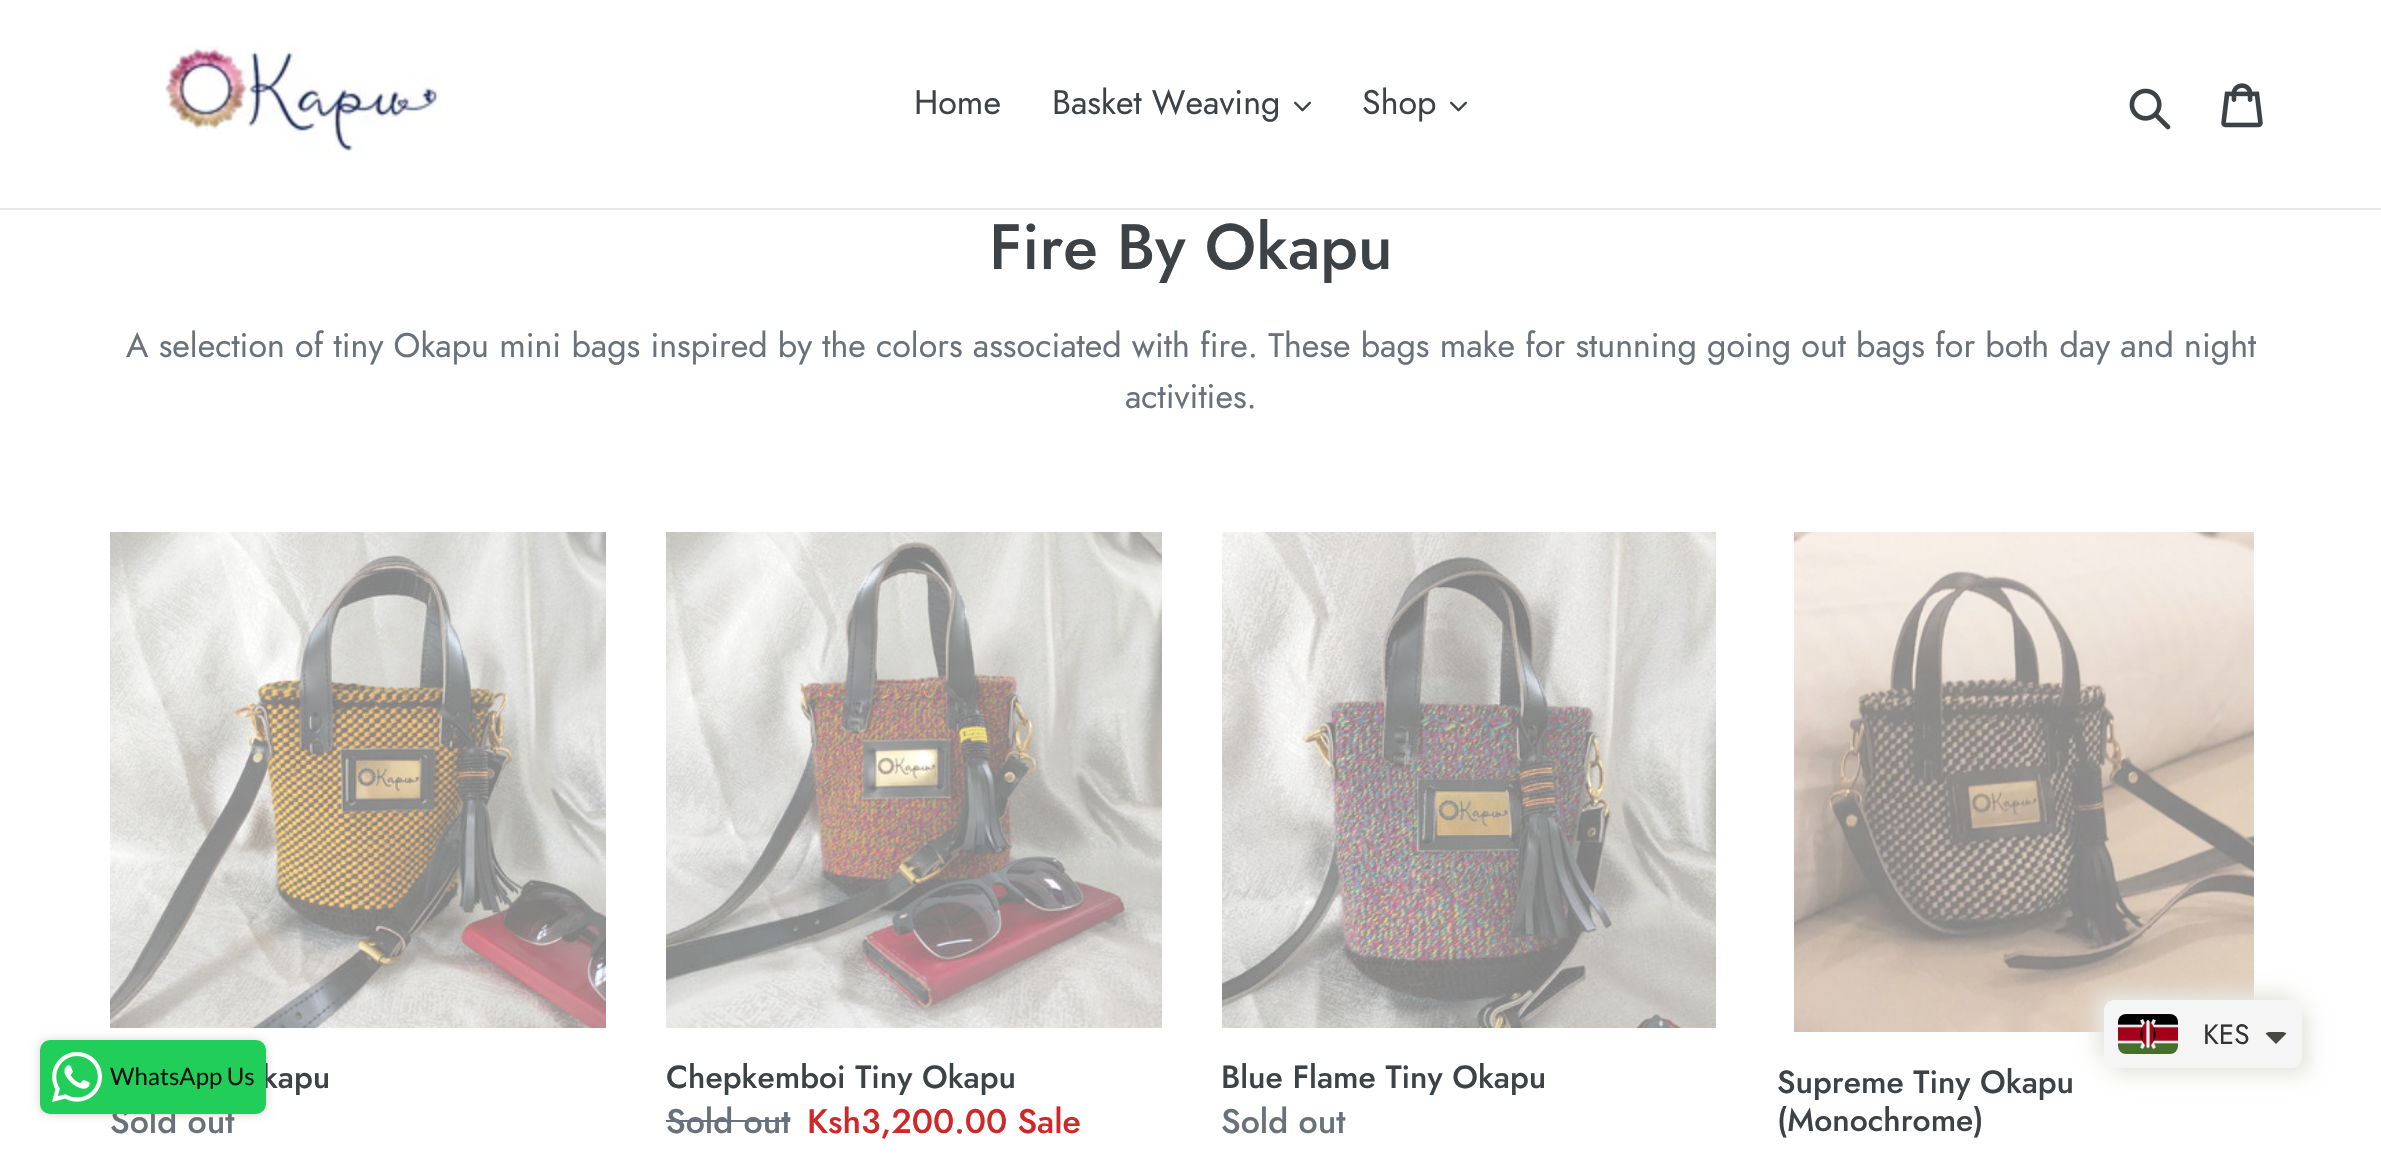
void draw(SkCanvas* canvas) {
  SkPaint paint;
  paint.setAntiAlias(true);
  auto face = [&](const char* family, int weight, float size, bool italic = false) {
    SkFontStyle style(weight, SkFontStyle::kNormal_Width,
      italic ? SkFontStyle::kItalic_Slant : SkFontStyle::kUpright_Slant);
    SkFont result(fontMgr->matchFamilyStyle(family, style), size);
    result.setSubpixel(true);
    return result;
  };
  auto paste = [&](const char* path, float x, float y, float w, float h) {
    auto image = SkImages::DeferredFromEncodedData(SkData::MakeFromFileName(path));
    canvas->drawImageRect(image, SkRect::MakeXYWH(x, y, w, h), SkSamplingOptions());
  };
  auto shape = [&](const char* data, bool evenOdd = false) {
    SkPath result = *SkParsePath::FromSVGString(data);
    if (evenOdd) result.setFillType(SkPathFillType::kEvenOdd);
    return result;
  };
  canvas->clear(0xffffffff);
  paint.setColor(0xffe8e9eb);
  canvas->drawRect(SkRect::MakeXYWH(0, 208, 2381, 2), paint);
  paste("img/1.png", 165, 46, 275, 106);
  paste("img/2.png", 1294, 101, 17, 11);
  paste("img/2.png", 1450, 101, 17, 11);
  paste("img/3.png", 2129, 88, 42, 42);
  paste("img/4.png", 2221, 83, 42, 45);
  paste("img/5.png", 110, 532, 496, 496);
  paste("img/6.png", 666, 532, 496, 496);
  paint.setColor(0xff69727b);
  canvas->drawRect(SkRect::MakeXYWH(666, 1120, 124, 2), paint);
  paste("img/7.png", 1222, 532, 494, 496);
  paste("img/8.png", 1794, 532, 460, 500);
  paint.setColor(0xffe8e8e2);
  paint.setMaskFilter(SkMaskFilter::MakeBlur(kNormal_SkBlurStyle, 9));
  canvas->drawRoundRect(SkRect::MakeXYWH(2096, 992, 198, 68), 10, 10, paint);
  paint.setMaskFilter(nullptr);
  paint.setMaskFilter(SkMaskFilter::MakeBlur(kNormal_SkBlurStyle, 9));
  canvas->drawRoundRect(SkRect::MakeXYWH(2112, 1008, 198, 68), 10, 10, paint);
  paint.setMaskFilter(nullptr);
  paint.setColor(0xfff5f5f5);
  canvas->drawRoundRect(SkRect::MakeXYWH(2104, 1000, 198, 68), 10, 10, paint);
  paste("img/9.png", 2118, 1014, 60, 40);
  paint.setColor(0xff474942);
  canvas->drawPath(shape("M2270 1032C2268 1032 2267 1032.5 2265.5 1033.5L2276 1044L2286.5 1033.5C2285 1032.5 2284 1032 2282 1032Z"), paint);
  paint.setColor(0xffd3d3d3);
  paint.setMaskFilter(SkMaskFilter::MakeBlur(kNormal_SkBlurStyle, 5));
  canvas->drawRoundRect(SkRect::MakeXYWH(40, 1040, 226, 74), 10, 10, paint);
  paint.setMaskFilter(nullptr);
  auto f0 = face("Jost", 400, 34);
  paint.setColor(0xff3d4246);
  {
    const struct { const char* s; float x, y; } items[] = {
      {"Home", 914, 114},
      {"Basket Weaving", 1052, 114},
      {"Shop", 1362, 114},
    };
    for (auto [s, x, y] : items) {
      canvas->drawString(s, x, y, f0, paint);
    }
  }
  auto f1 = face("Jost", 500, 64);
  canvas->drawString("Fire By Okapu", 989, 269, f1, paint);
  paint.setColor(0xff69727b);
  canvas->drawString("A selection of tiny Okapu mini bags inspired by the colors associated with fire. These bags make for stunning going out bags for both day and night", 126, 357, f0, paint);
  canvas->drawString("activities.", 1125, 408, f0, paint);
  auto f2 = face("Jost", 500, 32);
  paint.setColor(0xff3d4246);
  canvas->drawString("kapu", 262, 1088, f2, paint);
  auto f3 = face("Jost", 500, 34);
  paint.setColor(0xff69727b);
  canvas->drawString("Sold out", 110, 1133, f3, paint);
  paint.setColor(0xff3d4246);
  canvas->drawString("Chepkemboi Tiny Okapu", 666, 1088, f2, paint);
  paint.setColor(0xff69727b);
  canvas->drawString("Sold out", 666, 1133, f3, paint);
  paint.setColor(0xffcf2828);
  canvas->drawString("Ksh3,200.00 Sale", 807, 1133, f3, paint);
  paint.setColor(0xff3d4246);
  canvas->drawString("Blue Flame Tiny Okapu", 1221, 1088, f2, paint);
  paint.setColor(0xff69727b);
  canvas->drawString("Sold out", 1221, 1133, f3, paint);
  paint.setColor(0xff3d4246);
  canvas->drawString("Supreme Tiny Okapu", 1777, 1093, f2, paint);
  canvas->drawString("(Monochrome)", 1777, 1131, f2, paint);
  auto f4 = face("Jost", 400, 28);
  paint.setColor(0xff333333);
  canvas->drawString("KES", 2203, 1044, f4, paint);
  paint.setColor(0xff22ce5a);
  canvas->drawRoundRect(SkRect::MakeXYWH(40, 1040, 226, 74), 10, 10, paint);
  paste("img/10.png", 52, 1052, 50, 50);
  auto f5 = face("Lato", 400, 24);
  paint.setColor(0xff111111);
  canvas->drawString("WhatsApp Us", 110, 1085, f5, paint);
}
